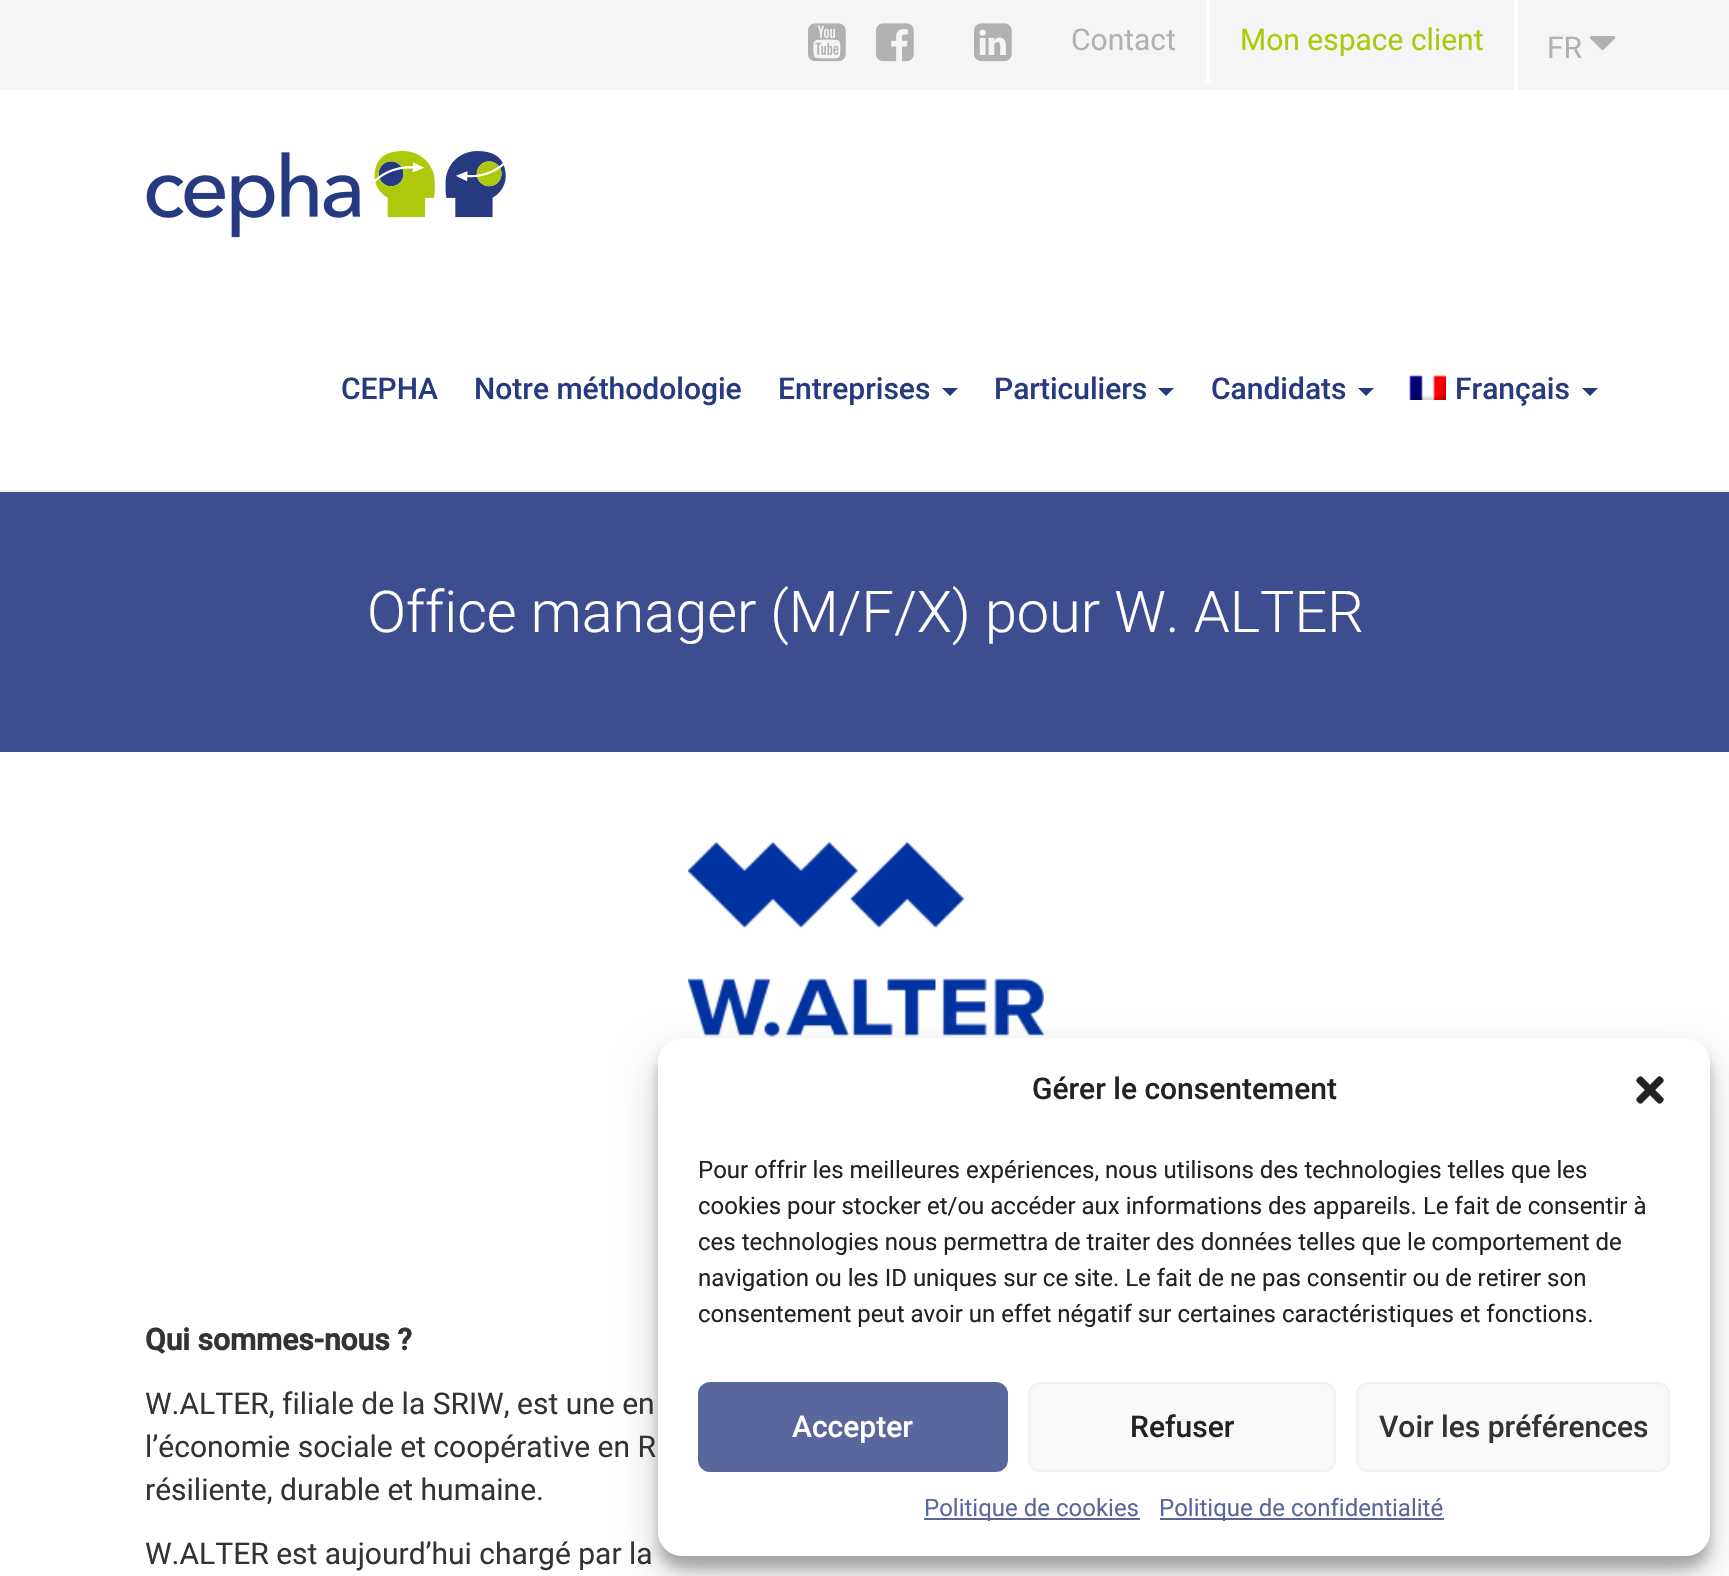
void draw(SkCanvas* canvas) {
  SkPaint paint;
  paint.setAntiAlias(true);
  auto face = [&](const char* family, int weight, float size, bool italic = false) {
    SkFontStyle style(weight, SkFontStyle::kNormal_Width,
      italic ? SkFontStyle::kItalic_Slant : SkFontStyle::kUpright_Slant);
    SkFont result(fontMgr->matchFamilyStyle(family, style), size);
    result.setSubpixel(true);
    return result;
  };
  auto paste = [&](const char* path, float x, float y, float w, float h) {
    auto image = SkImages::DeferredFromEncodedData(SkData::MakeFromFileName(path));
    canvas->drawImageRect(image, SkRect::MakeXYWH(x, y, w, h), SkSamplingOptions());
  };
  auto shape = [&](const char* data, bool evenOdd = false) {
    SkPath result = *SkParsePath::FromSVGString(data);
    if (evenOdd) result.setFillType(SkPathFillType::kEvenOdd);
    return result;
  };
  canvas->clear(0xffffffff);
  paint.setColor(0xfff5f5f8);
  canvas->drawRect(SkRect::MakeXYWH(0, 0, 1729, 90), paint);
  paste("img/1.png", 808, 23, 38, 39);
  paste("img/2.png", 876, 23, 38, 39);
  paste("img/3.png", 974, 23, 38, 39);
  paint.setColor(0xffffffff);
  canvas->drawRect(SkRect::MakeXYWH(1206, 0, 4, 82), paint);
  canvas->drawRect(SkRect::MakeXYWH(1514, 0, 4, 90), paint);
  paste("img/4.png", 1590, 36, 26, 15);
  paint.setColor(0xffeeeeee);
  canvas->drawRect(SkRect::MakeXYWH(0, 490, 1729, 2), paint);
  paste("img/5.png", 146, 151, 360, 87);
  paint.setColor(0xff263a82);
  canvas->drawPath(shape("M942 388H958L950 396Z"), paint);
  canvas->drawPath(shape("M1158 388H1174L1166 396Z"), paint);
  canvas->drawPath(shape("M1358 388H1374L1366 396Z"), paint);
  paste("img/6.png", 1409, 375, 37, 25);
  canvas->drawPath(shape("M1582 388H1598L1590 396Z"), paint);
  paint.setColor(0xff3c4e8f);
  canvas->drawRect(SkRect::MakeXYWH(0, 492, 1729, 260), paint);
  paste("img/7.png", 688, 842, 356, 195);
  paint.setColor(0x3b000000);
  paint.setMaskFilter(SkMaskFilter::MakeBlur(kNormal_SkBlurStyle, 6));
  canvas->drawRoundRect(SkRect::MakeXYWH(658, 1050, 1052, 518), 24, 24, paint);
  paint.setMaskFilter(nullptr);
  paint.setColor(0x30000000);
  paint.setMaskFilter(SkMaskFilter::MakeBlur(kNormal_SkBlurStyle, 20));
  canvas->drawRoundRect(SkRect::MakeXYWH(658, 1058, 1052, 518), 24, 24, paint);
  paint.setMaskFilter(nullptr);
  paint.setColor(0xffffffff);
  canvas->drawRoundRect(SkRect::MakeXYWH(658, 1038, 1052, 518), 24, 24, paint);
  paste("img/8.png", 1636, 1076, 28, 28);
  paint.setColor(0xff59679d);
  canvas->drawRoundRect(SkRect::MakeXYWH(699, 1383, 308, 88), 11, 11, paint);
  paint.setStroke(true);
  paint.setStrokeWidth(2);
  canvas->drawRoundRect(SkRect::MakeXYWH(699, 1383, 308, 88), 11, 11, paint);
  paint.setStroke(false);
  paint.setColor(0xfff9f9f9);
  canvas->drawRoundRect(SkRect::MakeXYWH(1029, 1383, 306, 88), 11, 11, paint);
  paint.setStroke(true);
  paint.setColor(0xfff2f2f2);
  canvas->drawRoundRect(SkRect::MakeXYWH(1029, 1383, 306, 88), 11, 11, paint);
  paint.setStroke(false);
  paint.setColor(0xfff9f9f9);
  canvas->drawRoundRect(SkRect::MakeXYWH(1357, 1383, 312, 88), 11, 11, paint);
  paint.setStroke(true);
  paint.setColor(0xfff2f2f2);
  canvas->drawRoundRect(SkRect::MakeXYWH(1357, 1383, 312, 88), 11, 11, paint);
  paint.setStroke(false);
  paint.setColor(0xff59679d);
  canvas->drawRect(SkRect::MakeXYWH(924, 1518, 216, 2), paint);
  canvas->drawRect(SkRect::MakeXYWH(1160, 1518, 284, 2), paint);
  auto f0 = face("Roboto", 400, 30);
  paint.setColor(0xffb1b1b3);
  canvas->drawString("Contact", 1071, 50, f0, paint);
  paint.setColor(0xffaec90b);
  canvas->drawString("Mon espace client", 1240, 50, f0, paint);
  paint.setColor(0xffb1b1b3);
  canvas->drawString("FR", 1547, 58, f0, paint);
  auto f1 = face("Roboto", 500, 30);
  paint.setColor(0xff263a82);
  {
    const struct { const char* s; float x, y; } items[] = {
      {"CEPHA", 341, 399},
      {"Notre méthodologie", 474, 399},
      {"Entreprises", 778, 399},
      {"Particuliers", 994, 399},
      {"Candidats", 1211, 399},
      {"Français", 1455, 399},
    };
    for (auto [s, x, y] : items) {
      canvas->drawString(s, x, y, f1, paint);
    }
  }
  auto f2 = face("Roboto", 300, 57.6f);
  paint.setColor(0xffffffff);
  canvas->drawString("Office manager (M/F/X) pour W. ALTER", 367, 632, f2, paint);
  auto f3 = face("Roboto", 700, 30);
  paint.setColor(0xff333333);
  canvas->drawString("Qui sommes-nous ?", 145, 1350, f3, paint);
  {
    const struct { const char* s; float x, y; } items[] = {
      {"W.ALTER, filiale de la SRIW, est une en", 145, 1414},
      {"l’économie sociale et coopérative en R", 145, 1457},
      {"résiliente, durable et humaine.", 145, 1500},
      {"W.ALTER est aujourd’hui chargé par la", 145, 1564},
    };
    for (auto [s, x, y] : items) {
      canvas->drawString(s, x, y, f0, paint);
    }
  }
  paint.setColor(0xff222222);
  canvas->drawString("Gérer le consentement", 1032, 1099, f1, paint);
  auto f4 = face("Roboto", 400, 24);
  {
    const struct { const char* s; float x, y; } items[] = {
      {"Pour offrir les meilleures expériences, nous utilisons des technologies telles que les", 698, 1178},
      {"cookies pour stocker et/ou accéder aux informations des appareils. Le fait de consentir à", 698, 1214},
      {"ces technologies nous permettra de traiter des données telles que le comportement de", 698, 1250},
      {"navigation ou les ID uniques sur ce site. Le fait de ne pas consentir ou de retirer son", 698, 1286},
      {"consentement peut avoir un effet négatif sur certaines caractéristiques et fonctions.", 698, 1322},
    };
    for (auto [s, x, y] : items) {
      canvas->drawString(s, x, y, f4, paint);
    }
  }
  paint.setColor(0xffffffff);
  canvas->drawString("Accepter", 792, 1437, f1, paint);
  paint.setColor(0xff222222);
  canvas->drawString("Refuser", 1130, 1437, f1, paint);
  paint.setColor(0xff333333);
  canvas->drawString("Voir les préférences", 1379, 1437, f1, paint);
  paint.setColor(0xff59679d);
  canvas->drawString("Politique de cookies", 924, 1516, f4, paint);
  canvas->drawString("Politique de confidentialité", 1159, 1516, f4, paint);
}
